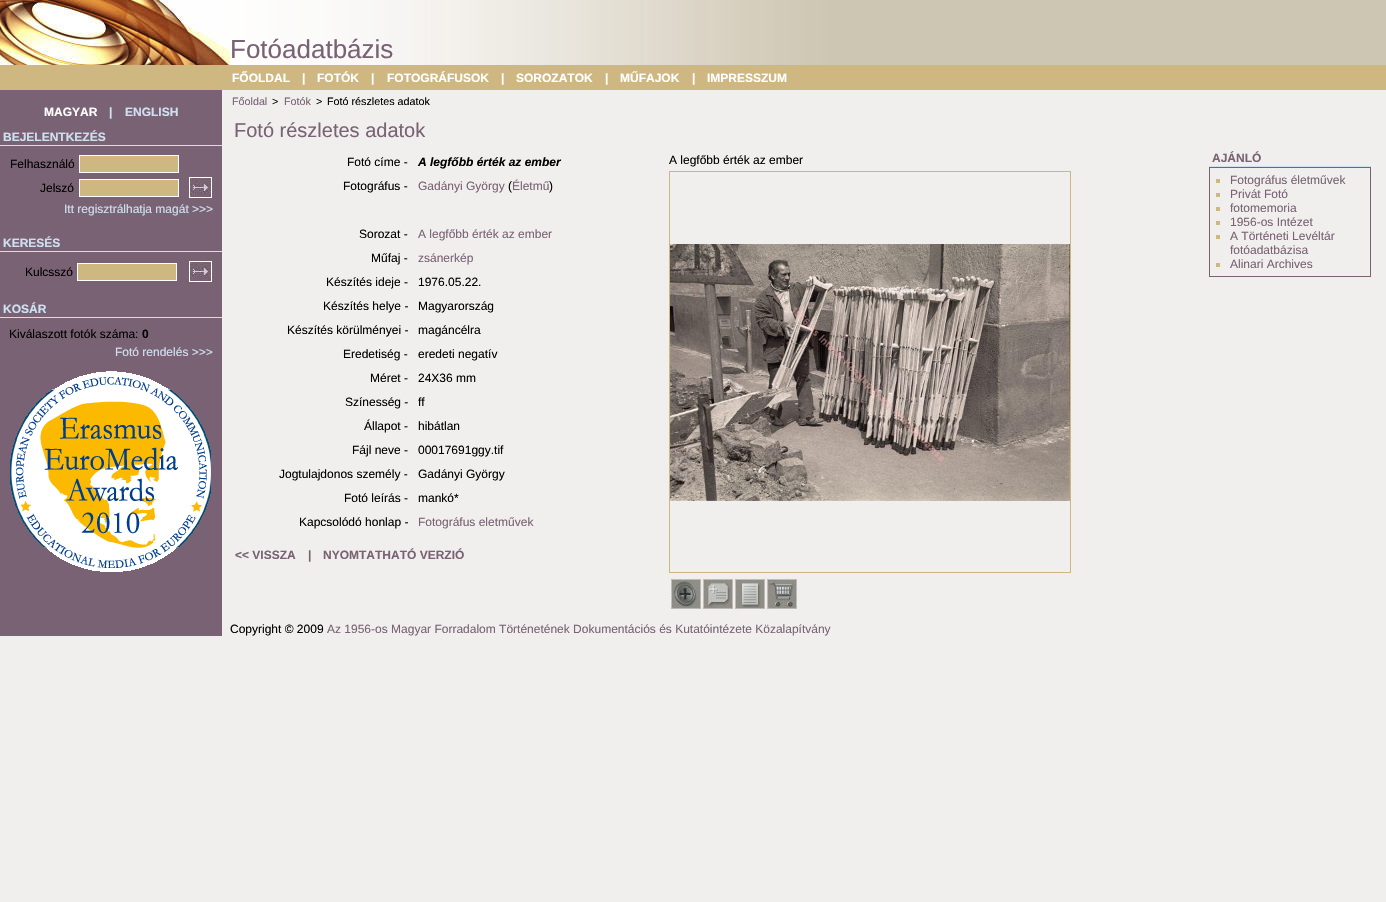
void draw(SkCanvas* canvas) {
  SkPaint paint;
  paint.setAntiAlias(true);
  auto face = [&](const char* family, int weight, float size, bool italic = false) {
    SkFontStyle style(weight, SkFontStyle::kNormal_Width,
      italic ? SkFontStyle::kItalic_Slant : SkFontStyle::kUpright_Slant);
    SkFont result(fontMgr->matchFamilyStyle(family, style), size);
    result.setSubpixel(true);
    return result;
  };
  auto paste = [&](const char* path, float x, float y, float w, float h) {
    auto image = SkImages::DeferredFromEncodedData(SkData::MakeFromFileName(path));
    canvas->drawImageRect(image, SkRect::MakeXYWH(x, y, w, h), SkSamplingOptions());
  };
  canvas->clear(0xfff0efed);
  paste("img/1.png", 0, 0, 230, 65);
  paste("img/2.png", 230, 0, 610, 65);
  {
    const struct { float x, y, w, h; SkColor color; } items[] = {
      {840, 0, 546, 65, 0xffcdc6b3},
      {0, 65, 1386, 25, 0xffceb781},
      {0, 90, 222, 546, 0xff796274},
      {0, 145, 222, 1, 0xffcfe0f1},
    };
    for (auto [x, y, w, h, color] : items) {
      paint.setColor(color);
      canvas->drawRect(SkRect::MakeXYWH(x, y, w, h), paint);
    }
  }
  paint.setColor(0xffceb781);
  canvas->drawRect(SkRect::MakeXYWH(79.5f, 155.5f, 99, 17), paint);
  paint.setStroke(true);
  paint.setStrokeWidth(1);
  paint.setColor(0xffffffff);
  canvas->drawRect(SkRect::MakeXYWH(79.5f, 155.5f, 99, 17), paint);
  paint.setStroke(false);
  paint.setColor(0xffceb781);
  canvas->drawRect(SkRect::MakeXYWH(79.5f, 179.5f, 99, 17), paint);
  paint.setStroke(true);
  paint.setColor(0xffffffff);
  canvas->drawRect(SkRect::MakeXYWH(79.5f, 179.5f, 99, 17), paint);
  canvas->drawRect(SkRect::MakeXYWH(189.5f, 177.5f, 22, 20), paint);
  paste("img/3.png", 190, 178, 21, 19);
  paint.setStroke(false);
  paint.setColor(0xffcfe0f1);
  canvas->drawRect(SkRect::MakeXYWH(0, 251, 222, 1), paint);
  paint.setColor(0xffceb781);
  canvas->drawRect(SkRect::MakeXYWH(77.5f, 263.5f, 99, 17), paint);
  paint.setStroke(true);
  paint.setColor(0xffffffff);
  canvas->drawRect(SkRect::MakeXYWH(77.5f, 263.5f, 99, 17), paint);
  canvas->drawRect(SkRect::MakeXYWH(189.5f, 261.5f, 22, 20), paint);
  paste("img/3.png", 190, 262, 21, 19);
  paint.setStroke(false);
  paint.setColor(0xffcfe0f1);
  canvas->drawRect(SkRect::MakeXYWH(0, 317, 222, 1), paint);
  paste("img/4.png", 10, 371, 201, 201);
  paint.setStroke(true);
  paint.setColor(0xffceb781);
  canvas->drawRect(SkRect::MakeXYWH(669.5f, 171.5f, 401, 401), paint);
  paste("img/5.png", 670, 244, 400, 257);
  paste("img/6.png", 671, 579, 30, 30);
  paste("img/7.png", 703, 579, 30, 30);
  paste("img/8.png", 735, 579, 30, 30);
  paste("img/9.png", 767, 579, 30, 30);
  paint.setStroke(false);
  paint.setColor(0xffcfe0f1);
  canvas->drawRect(SkRect::MakeXYWH(1209, 166, 162, 1), paint);
  paint.setStroke(true);
  paint.setColor(0xff796274);
  canvas->drawRect(SkRect::MakeXYWH(1209.5f, 167.5f, 161, 109), paint);
  paint.setStroke(false);
  {
    const struct { float x, y, w, h; SkColor color; } items[] = {
      {1216, 179, 4, 4, 0xffceb781},
      {1216, 193, 4, 4, 0xffceb781},
      {1216, 207, 4, 4, 0xffceb781},
      {1216, 221, 4, 4, 0xffceb781},
      {1216, 235, 4, 4, 0xffceb781},
      {1216, 263, 4, 4, 0xffceb781},
    };
    for (auto [x, y, w, h, color] : items) {
      paint.setColor(color);
      canvas->drawRect(SkRect::MakeXYWH(x, y, w, h), paint);
    }
  }
  auto f0 = face("Liberation Sans", 400, 26);
  paint.setColor(0xff796274);
  canvas->drawString("Fotóadatbázis", 230, 58, f0, paint);
  auto f1 = face("Liberation Sans", 700, 12);
  paint.setColor(0xffffffff);
  {
    const struct { const char* s; float x, y; } items[] = {
      {"FŐOLDAL", 232, 82},
      {"|", 302, 82},
      {"FOTÓK", 317, 82},
      {"|", 371, 82},
      {"FOTOGRÁFUSOK", 387, 82},
      {"|", 501, 82},
      {"SOROZATOK", 516, 82},
      {"|", 605, 82},
      {"MŰFAJOK", 620, 82},
      {"|", 692, 82},
      {"IMPRESSZUM", 707, 82},
      {"MAGYAR", 44, 116},
    };
    for (auto [s, x, y] : items) {
      canvas->drawString(s, x, y, f1, paint);
    }
  }
  paint.setColor(0xffcfe0f1);
  {
    const struct { const char* s; float x, y; } items[] = {
      {"|", 109, 116},
      {"ENGLISH", 125, 116},
      {"BEJELENTKEZÉS", 3, 141},
    };
    for (auto [s, x, y] : items) {
      canvas->drawString(s, x, y, f1, paint);
    }
  }
  auto f2 = face("Liberation Sans", 400, 12);
  paint.setColor(0xff000000);
  canvas->drawString("Felhasználó", 10, 168, f2, paint);
  canvas->drawString("Jelszó", 40, 192, f2, paint);
  paint.setColor(0xffcfe0f1);
  canvas->drawString("Itt regisztrálhatja magát >>>", 64, 213, f2, paint);
  canvas->drawString("KERESÉS", 3, 247, f1, paint);
  paint.setColor(0xff000000);
  canvas->drawString("Kulcsszó", 25, 276, f2, paint);
  paint.setColor(0xffcfe0f1);
  canvas->drawString("KOSÁR", 3, 313, f1, paint);
  paint.setColor(0xff000000);
  canvas->drawString("Kiválaszott fotók száma:", 9, 338, f2, paint);
  canvas->drawString("0", 142, 338, f1, paint);
  paint.setColor(0xffcfe0f1);
  canvas->drawString("Fotó rendelés >>>", 115, 356, f2, paint);
  auto f3 = face("Liberation Sans", 400, 10.75f);
  paint.setColor(0xff796274);
  canvas->drawString("Főoldal", 232, 105, f3, paint);
  paint.setColor(0xff000000);
  canvas->drawString(">", 272, 105, f3, paint);
  paint.setColor(0xff796274);
  canvas->drawString("Fotók", 284, 105, f3, paint);
  paint.setColor(0xff000000);
  canvas->drawString(">", 316, 105, f3, paint);
  canvas->drawString("Fotó részletes adatok", 327, 105, f3, paint);
  auto f4 = face("Liberation Sans", 400, 20);
  paint.setColor(0xff796274);
  canvas->drawString("Fotó részletes adatok", 234, 137, f4, paint);
  paint.setColor(0xff000000);
  canvas->drawString("Fotó címe -", 347, 166, f2, paint);
  auto f5 = face("Liberation Sans", 700, 12, true);
  canvas->drawString("A legfőbb érték az ember", 418, 166, f5, paint);
  canvas->drawString("Fotográfus -", 343, 190, f2, paint);
  paint.setColor(0xff796274);
  canvas->drawString("Gadányi György", 418, 190, f2, paint);
  paint.setColor(0xff000000);
  canvas->drawString("(", 508, 190, f2, paint);
  paint.setColor(0xff796274);
  canvas->drawString("Életmű", 512, 190, f2, paint);
  paint.setColor(0xff000000);
  canvas->drawString(")", 549, 190, f2, paint);
  canvas->drawString("Sorozat -", 359, 238, f2, paint);
  paint.setColor(0xff796274);
  canvas->drawString("A legfőbb érték az ember", 418, 238, f2, paint);
  paint.setColor(0xff000000);
  canvas->drawString("Műfaj -", 371, 262, f2, paint);
  paint.setColor(0xff796274);
  canvas->drawString("zsánerkép", 418, 262, f2, paint);
  paint.setColor(0xff000000);
  {
    const struct { const char* s; float x, y; } items[] = {
      {"Készítés ideje -", 326, 286},
      {"1976.05.22.", 418, 286},
      {"Készítés helye -", 323, 310},
      {"Magyarország", 418, 310},
      {"Készítés körülményei -", 287, 334},
      {"magáncélra", 418, 334},
      {"Eredetiség -", 343, 358},
      {"eredeti negatív", 418, 358},
      {"Méret -", 370, 382},
      {"24X36 mm", 418, 382},
      {"Színesség -", 345, 406},
      {"ff", 418, 406},
      {"Állapot -", 364, 430},
      {"hibátlan", 418, 430},
      {"Fájl neve -", 352, 454},
      {"00017691ggy.tif", 418, 454},
      {"Jogtulajdonos személy -", 279, 478},
      {"Gadányi György", 418, 478},
      {"Fotó leírás -", 344, 502},
      {"mankó*", 418, 502},
      {"Kapcsolódó honlap -", 299, 526},
    };
    for (auto [s, x, y] : items) {
      canvas->drawString(s, x, y, f2, paint);
    }
  }
  paint.setColor(0xff796274);
  canvas->drawString("Fotográfus eletművek", 418, 526, f2, paint);
  {
    const struct { const char* s; float x, y; } items[] = {
      {"<< VISSZA", 235, 559},
      {"|", 308, 559},
      {"NYOMTATHATÓ VERZIÓ", 323, 559},
    };
    for (auto [s, x, y] : items) {
      canvas->drawString(s, x, y, f1, paint);
    }
  }
  paint.setColor(0xff000000);
  canvas->drawString("A legfőbb érték az ember", 669, 164, f2, paint);
  paint.setColor(0xff796274);
  canvas->drawString("AJÁNLÓ", 1212, 162, f1, paint);
  {
    const struct { const char* s; float x, y; } items[] = {
      {"Fotográfus életművek", 1230, 184},
      {"Privát Fotó", 1230, 198},
      {"fotomemoria", 1230, 212},
      {"1956-os Intézet", 1230, 226},
      {"A Történeti Levéltár", 1230, 240},
      {"fotóadatbázisa", 1230, 254},
      {"Alinari Archives", 1230, 268},
    };
    for (auto [s, x, y] : items) {
      canvas->drawString(s, x, y, f2, paint);
    }
  }
  paint.setColor(0xff000000);
  canvas->drawString("Copyright © 2009", 230, 633, f2, paint);
  paint.setColor(0xff796274);
  canvas->drawString("Az 1956-os Magyar Forradalom Történetének Dokumentációs és Kutatóintézete Közalapítvány", 327, 633, f2, paint);
}
